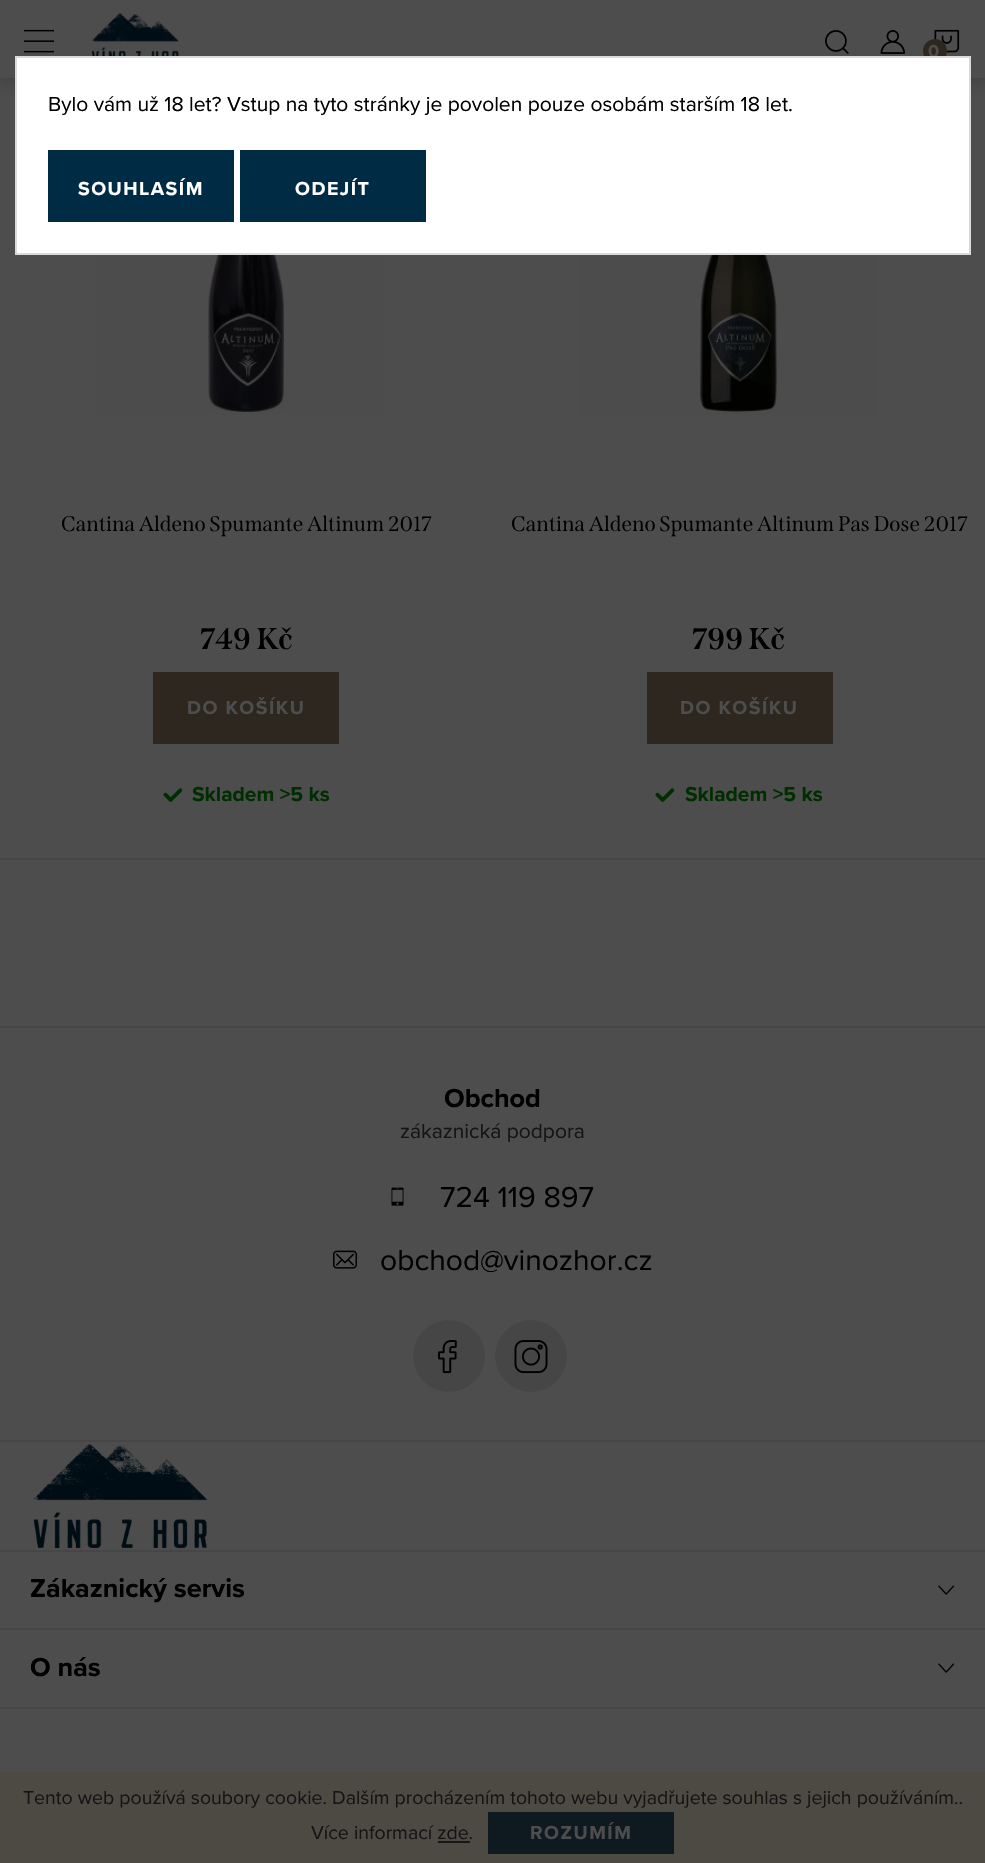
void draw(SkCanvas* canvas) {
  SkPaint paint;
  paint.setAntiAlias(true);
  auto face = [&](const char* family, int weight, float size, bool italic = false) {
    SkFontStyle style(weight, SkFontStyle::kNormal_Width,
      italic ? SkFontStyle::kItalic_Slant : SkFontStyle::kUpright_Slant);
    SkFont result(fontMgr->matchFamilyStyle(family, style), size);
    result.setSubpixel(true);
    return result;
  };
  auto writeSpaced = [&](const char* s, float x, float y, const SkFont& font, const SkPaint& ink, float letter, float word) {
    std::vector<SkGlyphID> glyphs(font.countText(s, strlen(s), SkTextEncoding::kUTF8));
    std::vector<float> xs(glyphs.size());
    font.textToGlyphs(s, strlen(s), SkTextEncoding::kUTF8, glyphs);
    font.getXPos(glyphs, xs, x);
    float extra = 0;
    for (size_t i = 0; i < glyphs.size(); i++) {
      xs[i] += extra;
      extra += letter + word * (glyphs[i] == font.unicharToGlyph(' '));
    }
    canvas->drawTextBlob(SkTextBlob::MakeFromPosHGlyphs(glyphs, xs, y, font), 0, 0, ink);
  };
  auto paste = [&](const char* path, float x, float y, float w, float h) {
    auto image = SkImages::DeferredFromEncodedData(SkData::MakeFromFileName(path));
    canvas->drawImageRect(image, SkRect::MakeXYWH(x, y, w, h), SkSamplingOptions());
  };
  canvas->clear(0xff4d4d4d);
  paint.setColor(0x33000000);
  paint.setMaskFilter(SkMaskFilter::MakeBlur(kNormal_SkBlurStyle, 7.5f));
  canvas->drawRect(SkRect::MakeXYWH(0, 3, 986, 78), paint);
  paint.setMaskFilter(nullptr);
  paint.setColor(0xff4d4d4d);
  canvas->drawRect(SkRect::MakeXYWH(0, 0, 985, 78), paint);
  paste("img/1.png", 24, 29, 30, 24);
  paste("img/2.png", 91, 13, 88, 43);
  paste("img/3.png", 825, 30, 24, 24);
  paste("img/4.png", 880, 30, 25, 24);
  paste("img/5.png", 934, 29, 26, 24);
  paint.setColor(0xff2e271f);
  canvas->drawCircle(935, 51, 12, paint);
  paint.setColor(0xff464646);
  canvas->drawRect(SkRect::MakeXYWH(0, 858, 985, 2), paint);
  paste("img/6.png", 96, 255, 289, 160);
  paint.setColor(0xff2e271f);
  canvas->drawRect(SkRect::MakeXYWH(153, 672, 186, 72), paint);
  paste("img/7.png", 163, 788, 20, 14);
  paste("img/8.png", 581, 255, 296, 160);
  canvas->drawRect(SkRect::MakeXYWH(647, 672, 186, 72), paint);
  paste("img/7.png", 655, 788, 20, 14);
  paint.setColor(0xff464646);
  canvas->drawRect(SkRect::MakeXYWH(0, 1026, 985, 2), paint);
  canvas->drawRect(SkRect::MakeXYWH(0, 1440, 985, 2), paint);
  paste("img/9.png", 391, 1187, 13, 19);
  paste("img/10.png", 333, 1250, 24, 19);
  canvas->drawCircle(449, 1356, 36, paint);
  paste("img/11.png", 438, 1340, 19, 34);
  canvas->drawCircle(531, 1356, 36, paint);
  paste("img/12.png", 514, 1340, 34, 34);
  canvas->drawRect(SkRect::MakeXYWH(0, 1550, 985, 2), paint);
  paste("img/13.png", 33, 1443, 174, 105);
  canvas->drawRect(SkRect::MakeXYWH(0, 1628, 985, 2), paint);
  paste("img/14.png", 938, 1585, 17, 10);
  canvas->drawRect(SkRect::MakeXYWH(0, 1707, 985, 2), paint);
  paste("img/14.png", 938, 1663, 17, 10);
  {
    const struct { float x, y, w, h; SkColor color; } items[] = {
      {0, 1772, 985, 91, 0xcc4c4941},
      {488, 1812, 186, 42, 0xff0f1a20},
      {438, 1841, 32, 2, 0xff171717},
    };
    for (auto [x, y, w, h, color] : items) {
      paint.setColor(color);
      canvas->drawRect(SkRect::MakeXYWH(x, y, w, h), paint);
    }
  }
  auto f0 = face("Proxima Nova", 700, 18);
  paint.setColor(0xff4d4d4d);
  writeSpaced("0", 928, 57, f0, paint, 1.5f, 0);
  auto f1 = face("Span", 400, 21);
  paint.setColor(0xff000000);
  canvas->drawString("Cantina Aldeno Spumante Altinum 2017", 61, 531, f1, paint);
  auto f2 = face("Span", 700, 30);
  canvas->drawString("749 Kč", 200, 649, f2, paint);
  auto f3 = face("Proxima Nova", 700, 19.5f);
  paint.setColor(0xff4d4d4d);
  writeSpaced("DO KOŠÍKU", 187, 714, f3, paint, 1.5f, 0);
  auto f4 = face("Proxima Nova", 700, 21);
  paint.setColor(0xff002e00);
  canvas->drawString("Skladem >5 ks", 192, 801, f4, paint);
  paint.setColor(0xff000000);
  canvas->drawString("Cantina Aldeno Spumante Altinum Pas Dose 2017", 511, 531, f1, paint);
  canvas->drawString("799 Kč", 692, 649, f2, paint);
  paint.setColor(0xff4d4d4d);
  writeSpaced("DO KOŠÍKU", 680, 714, f3, paint, 1.5f, 0);
  paint.setColor(0xff002e00);
  canvas->drawString("Skladem >5 ks", 685, 801, f4, paint);
  auto f5 = face("Proxima Nova", 700, 27);
  paint.setColor(0xff000000);
  canvas->drawString("Obchod", 444, 1107, f5, paint);
  auto f6 = face("Proxima Nova", 400, 21);
  paint.setColor(0xff141414);
  canvas->drawString("zákaznická podpora", 400, 1138, f6, paint);
  auto f7 = face("Proxima Nova", 400, 30);
  paint.setColor(0xff000000);
  canvas->drawString("724 119 897", 440, 1207, f7, paint);
  canvas->drawString("obchod@vinozhor.cz", 380, 1270, f7, paint);
  canvas->drawString("Zákaznický servis", 30, 1597, f5, paint);
  canvas->drawString("O nás", 30, 1676, f5, paint);
  paint.setColor(0xffffffff);
  canvas->drawRect(SkRect::MakeXYWH(16, 57, 954, 197), paint);
  paint.setStroke(true);
  paint.setStrokeWidth(2);
  paint.setColor(0xffdadada);
  canvas->drawRect(SkRect::MakeXYWH(16, 57, 954, 197), paint);
  paint.setStroke(false);
  paint.setColor(0xff000000);
  canvas->drawString("Bylo vám už 18 let? Vstup na tyto stránky je povolen pouze osobám starším 18 let.", 48, 111, f6, paint);
  paint.setColor(0xff002b44);
  canvas->drawRect(SkRect::MakeXYWH(48, 150, 186, 72), paint);
  paint.setColor(0xffffffff);
  writeSpaced("SOUHLASÍM", 78, 195, f3, paint, 1.5f, 0);
  paint.setColor(0xff002b44);
  canvas->drawRect(SkRect::MakeXYWH(240, 150, 186, 72), paint);
  paint.setColor(0xffffffff);
  writeSpaced("ODEJÍT", 295, 195, f3, paint, 1.5f, 0);
  auto f8 = face("Proxima Nova", 400, 19.5f);
  paint.setColor(0xff141414);
  canvas->drawString("Tento web používá soubory cookie. Dalším procházením tohoto webu vyjadřujete souhlas s jejich používáním..", 23, 1804, f8, paint);
  canvas->drawString("Více informací zde.", 311, 1839, f8, paint);
  paint.setColor(0xff4d4d4d);
  writeSpaced("ROZUMÍM", 530, 1839, f3, paint, 1.5f, 0);
}
